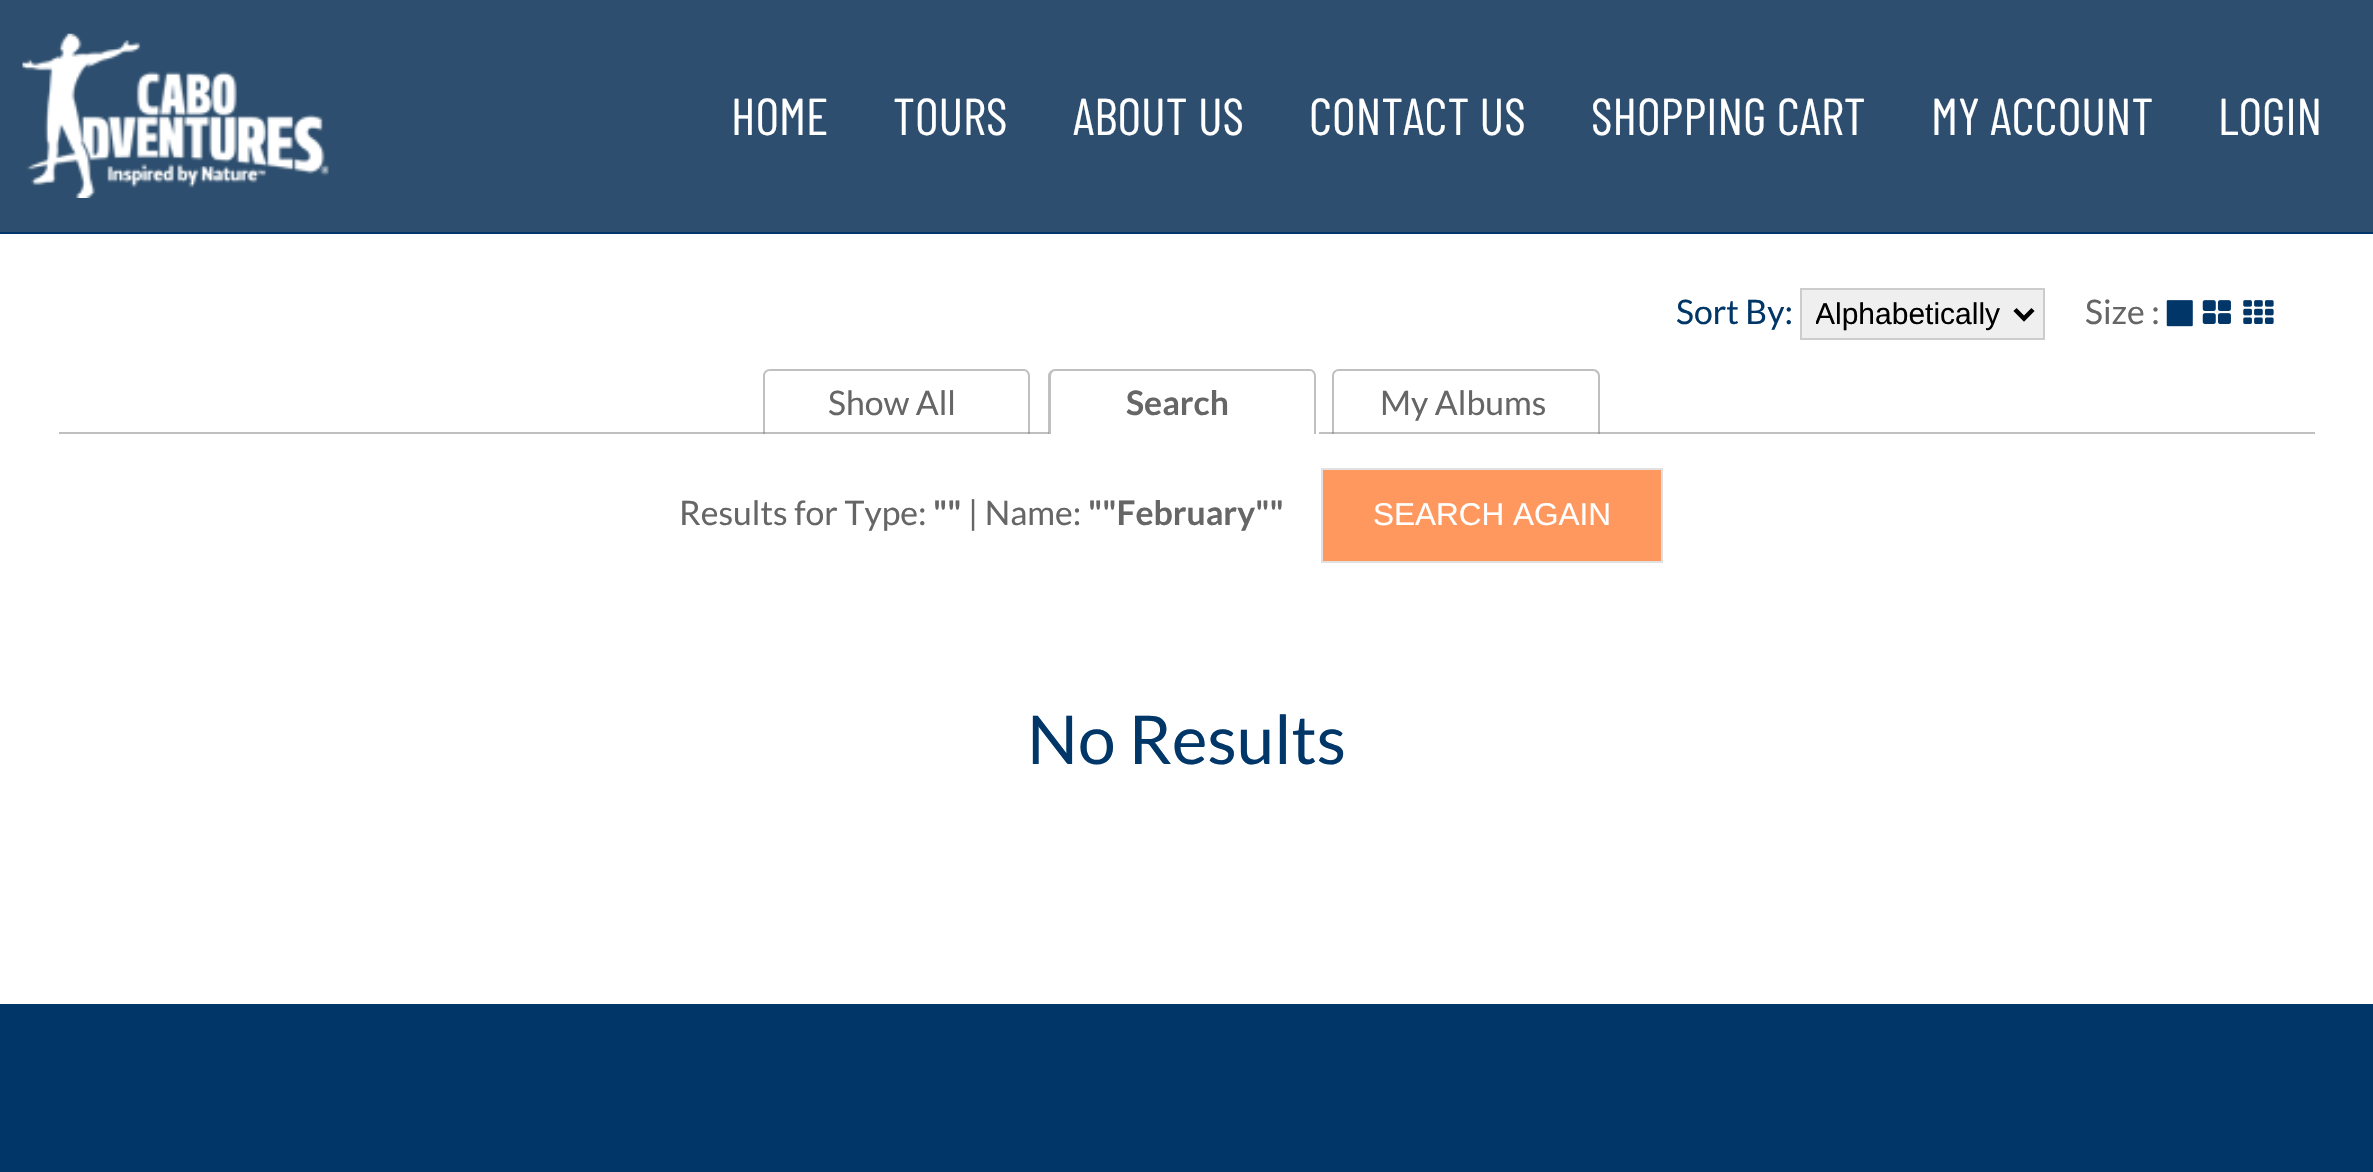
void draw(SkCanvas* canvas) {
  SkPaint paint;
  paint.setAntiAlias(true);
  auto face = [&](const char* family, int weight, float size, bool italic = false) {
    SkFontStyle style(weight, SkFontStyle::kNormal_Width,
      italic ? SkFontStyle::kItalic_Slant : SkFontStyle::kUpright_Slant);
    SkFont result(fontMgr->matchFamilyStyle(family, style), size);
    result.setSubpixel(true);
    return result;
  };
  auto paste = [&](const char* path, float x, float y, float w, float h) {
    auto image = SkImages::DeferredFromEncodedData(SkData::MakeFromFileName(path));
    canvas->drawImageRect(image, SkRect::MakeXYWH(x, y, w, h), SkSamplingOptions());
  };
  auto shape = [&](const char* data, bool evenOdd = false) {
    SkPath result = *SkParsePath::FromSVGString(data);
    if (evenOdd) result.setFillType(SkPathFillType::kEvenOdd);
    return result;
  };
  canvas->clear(0xffffffff);
  paint.setColor(0xff2d4e6e);
  canvas->drawRect(SkRect::MakeXYWH(0, 0, 2373, 232), paint);
  paint.setColor(0xff013668);
  canvas->drawRect(SkRect::MakeXYWH(0, 232, 2373, 2), paint);
  paste("img/1.png", 22, 33, 307, 165);
  paint.setColor(0xffefefef);
  canvas->drawRect(SkRect::MakeXYWH(1801, 289, 243, 50), paint);
  paint.setStroke(true);
  paint.setStrokeWidth(2);
  paint.setColor(0xffcccccc);
  canvas->drawRect(SkRect::MakeXYWH(1801, 289, 243, 50), paint);
  paint.setStrokeWidth(4.5f);
  paint.setColor(0xff000000);
  canvas->drawPath(shape("M2015 309.5L2024 318.5L2033 309.5"), paint);
  paste("img/2.png", 2166, 300, 27, 27);
  paste("img/3.png", 2202, 300, 29, 24);
  paste("img/4.png", 2243, 300, 31, 24);
  paint.setStroke(false);
  paint.setColor(0xffc0c0c0);
  canvas->drawPath(shape("M770 369H1024C1027 369 1030 372 1030 376V434H763V376C763 372 766 369 770 369ZM770 371H1024C1026 371 1028 373 1028 376V434H765V376C765 373 767 371 770 371Z", true), paint);
  canvas->drawPath(shape("M1055 369H1310C1313 369 1316 372 1316 376V434H1048V376C1048 372 1052 369 1055 369ZM1055 371H1310C1312 371 1314 373 1314 376V434H1051V376C1051 373 1053 371 1055 371Z", true), paint);
  paint.setColor(0x80808080);
  canvas->drawRect(SkRect::MakeXYWH(59, 432, 990, 2), paint);
  paint.setColor(0xffc0c0c0);
  canvas->drawRect(SkRect::MakeXYWH(1319, 432, 996, 2), paint);
  paint.setColor(0x80808080);
  canvas->drawPath(shape("M1339 369H1593C1597 369 1600 372 1600 376V434H1332V376C1332 372 1335 369 1339 369ZM1339 371H1593C1595 371 1598 373 1598 376V434H1334V376C1334 373 1336 371 1339 371Z", true), paint);
  paint.setColor(0xffff985e);
  canvas->drawRect(SkRect::MakeXYWH(1322, 469, 340, 93), paint);
  paint.setStroke(true);
  paint.setStrokeWidth(2);
  paint.setColor(0xffe0e1e0);
  canvas->drawRect(SkRect::MakeXYWH(1322, 469, 340, 93), paint);
  paint.setStroke(false);
  paint.setColor(0xff003768);
  canvas->drawRect(SkRect::MakeXYWH(0, 1004, 2373, 168), paint);
  auto f0 = face("Barlow Condensed", 400, 51.75f);
  paint.setColor(0xffffffff);
  {
    const struct { const char* s; float x, y; } items[] = {
      {"HOME", 731, 135},
      {"TOURS", 893, 135},
      {"ABOUT US", 1073, 135},
      {"CONTACT US", 1309, 135},
      {"SHOPPING CART", 1591, 135},
      {"MY ACCOUNT", 1931, 135},
      {"LOGIN", 2218, 135},
    };
    for (auto [s, x, y] : items) {
      canvas->drawString(s, x, y, f0, paint);
    }
  }
  auto f1 = face("Lato", 400, 33.75f);
  paint.setColor(0xff013668);
  canvas->drawString("Sort By:", 1676, 324, f1, paint);
  canvas->save();
  canvas->clipRect(SkRect::MakeXYWH(1816, 295, 187, 38));
  auto f2 = face("Liberation Sans", 400, 30);
  paint.setColor(0xff000000);
  canvas->drawString("Alphabetically", 1815, 324, f2, paint);
  canvas->restore();
  paint.setColor(0xff666666);
  canvas->drawString("Size :", 2085, 324, f1, paint);
  canvas->drawString("Show All", 828, 415, f1, paint);
  auto f3 = face("Lato", 700, 33.75f);
  canvas->drawString("Search", 1126, 415, f3, paint);
  canvas->drawString("My Albums", 1380, 415, f1, paint);
  canvas->drawString("Results for Type:", 679, 525, f1, paint);
  canvas->drawString("\"\"", 933, 525, f3, paint);
  canvas->drawString("| Name:", 968, 525, f1, paint);
  canvas->drawString("\"\"February\"\"", 1088, 525, f3, paint);
  auto f4 = face("Liberation Sans", 400, 31.5f);
  paint.setColor(0xffffffff);
  canvas->drawString("SEARCH AGAIN", 1373, 525, f4, paint);
  auto f5 = face("Lato", 400, 67.5f);
  paint.setColor(0xff013668);
  canvas->drawString("No Results", 1027, 764, f5, paint);
}
